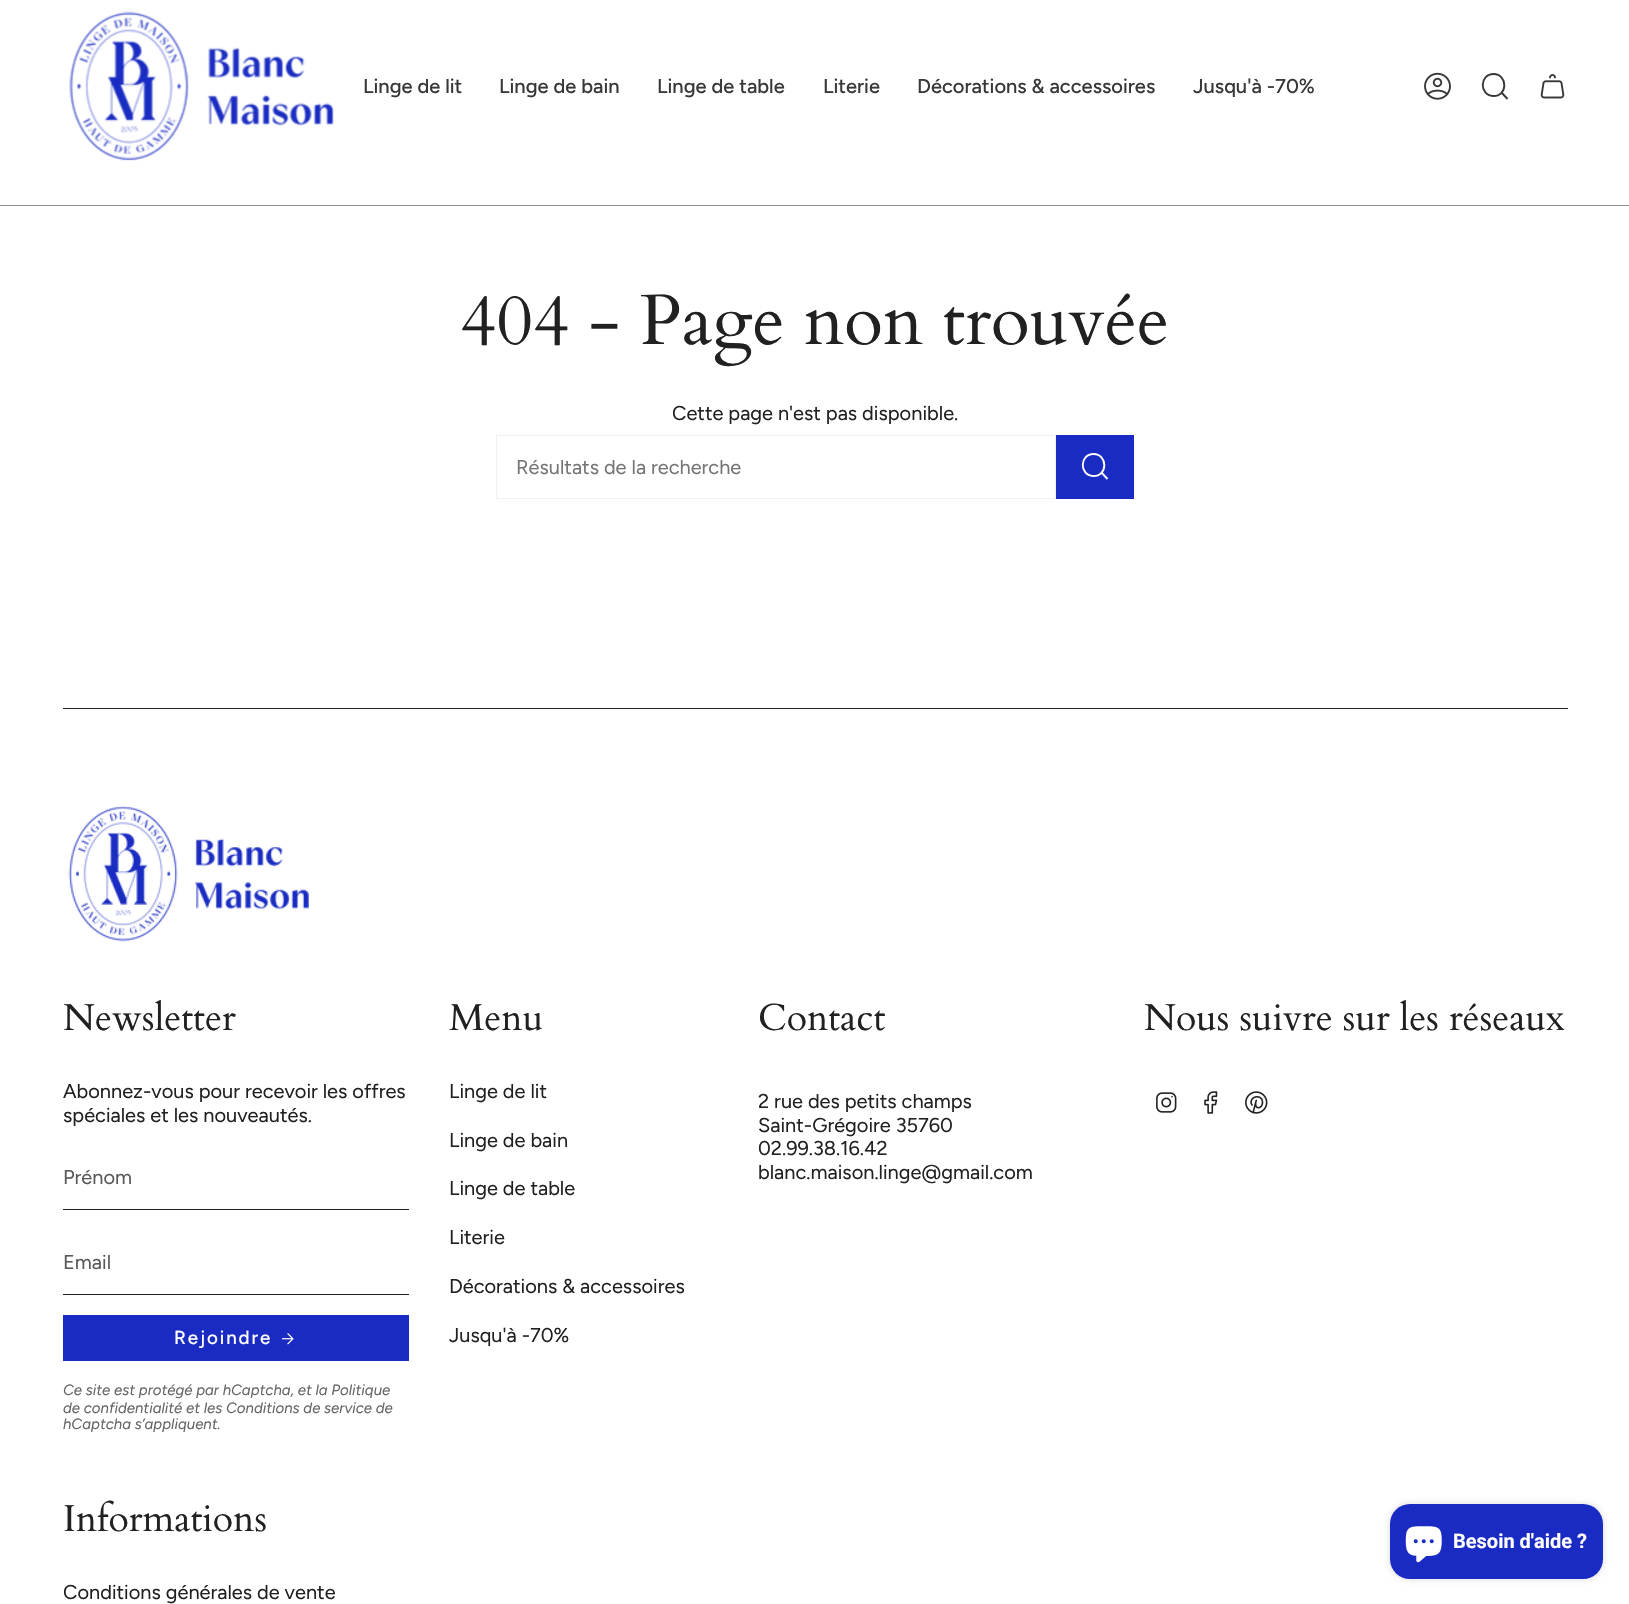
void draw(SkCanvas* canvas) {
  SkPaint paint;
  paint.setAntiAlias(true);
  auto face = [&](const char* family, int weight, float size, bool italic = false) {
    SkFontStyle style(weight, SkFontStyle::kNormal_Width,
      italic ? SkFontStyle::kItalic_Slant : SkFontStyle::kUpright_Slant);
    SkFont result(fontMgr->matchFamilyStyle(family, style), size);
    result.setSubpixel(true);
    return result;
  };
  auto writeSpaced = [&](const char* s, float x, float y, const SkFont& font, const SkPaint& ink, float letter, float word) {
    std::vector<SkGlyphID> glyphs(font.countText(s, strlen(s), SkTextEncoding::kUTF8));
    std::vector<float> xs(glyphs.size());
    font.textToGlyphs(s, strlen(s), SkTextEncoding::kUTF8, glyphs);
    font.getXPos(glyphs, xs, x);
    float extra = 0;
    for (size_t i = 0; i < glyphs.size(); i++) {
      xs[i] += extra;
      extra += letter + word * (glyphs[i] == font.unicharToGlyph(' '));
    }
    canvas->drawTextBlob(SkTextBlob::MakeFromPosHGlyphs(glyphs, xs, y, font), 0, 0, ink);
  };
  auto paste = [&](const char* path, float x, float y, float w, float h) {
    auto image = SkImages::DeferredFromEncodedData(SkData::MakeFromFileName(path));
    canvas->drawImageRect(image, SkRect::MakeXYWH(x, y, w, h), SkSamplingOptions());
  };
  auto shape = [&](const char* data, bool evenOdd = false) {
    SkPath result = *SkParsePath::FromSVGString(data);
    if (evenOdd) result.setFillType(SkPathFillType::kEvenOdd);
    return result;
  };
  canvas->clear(0xffffffff);
  paste("img/1.png", 69, 11, 265, 150);
  paste("img/2.png", 1424, 72, 27, 28);
  paint.setStroke(true);
  paint.setStrokeWidth(1.9f);
  paint.setColor(0xff383838);
  canvas->drawPath(shape("M1493.5 74C1508 74 1508 96.5 1493 96C1479 95 1479.5 74 1493.5 74ZM1501.5 92.5L1507.5 99"), paint);
  paste("img/3.png", 1540, 74, 25, 25);
  paint.setStroke(false);
  paint.setColor(0xff909090);
  canvas->drawRect(SkRect::MakeXYWH(0, 205, 1629, 1), paint);
  paint.setStroke(true);
  paint.setStrokeWidth(1);
  paint.setColor(0xfff0f0f0);
  canvas->drawRect(SkRect::MakeXYWH(496.5f, 435.5f, 559, 63), paint);
  paint.setStroke(false);
  paint.setColor(0xff192bc2);
  canvas->drawRect(SkRect::MakeXYWH(1056, 435, 78, 64), paint);
  paint.setStroke(true);
  paint.setStrokeWidth(1.9f);
  paint.setColor(0xffffffff);
  canvas->drawPath(shape("M1093.5 454C1108 454 1108 476.5 1093 476C1079 475 1079.5 454 1093.5 454ZM1101.5 472.5L1107.5 479"), paint);
  paint.setStroke(false);
  paint.setColor(0xff212121);
  canvas->drawRect(SkRect::MakeXYWH(63, 708, 1505, 1), paint);
  paste("img/4.png", 68, 806, 241, 136);
  {
    const struct { float x, y, w, h; SkColor color; } items[] = {
      {63, 1209, 346, 1, 0xff212121},
      {63, 1294, 346, 1, 0xff212121},
      {63, 1315, 346, 46, 0xff192bc2},
    };
    for (auto [x, y, w, h, color] : items) {
      paint.setColor(color);
      canvas->drawRect(SkRect::MakeXYWH(x, y, w, h), paint);
    }
  }
  paste("img/5.png", 281, 1333, 13, 12);
  paste("img/6.png", 1156, 1092, 21, 21);
  paste("img/7.png", 1204, 1091, 14, 23);
  paste("img/8.png", 1245, 1091, 23, 23);
  paint.setColor(0x26000000);
  paint.setMaskFilter(SkMaskFilter::MakeBlur(kNormal_SkBlurStyle, 3));
  canvas->drawRoundRect(SkRect::MakeXYWH(1390, 1504, 213, 75), 20, 20, paint);
  paint.setMaskFilter(nullptr);
  paint.setColor(0xff192bc2);
  canvas->drawRoundRect(SkRect::MakeXYWH(1390, 1504, 213, 75), 20, 20, paint);
  paste("img/9.png", 1405, 1526, 37, 37);
  auto f0 = face("Figtree", 500, 20.1f);
  paint.setColor(0xff383838);
  {
    const struct { const char* s; float x, y; } items[] = {
      {"Linge de lit", 363, 93},
      {"Linge de bain", 499, 93},
      {"Linge de table", 657, 93},
      {"Literie", 823, 93},
      {"Décorations & accessoires", 917, 93},
      {"Jusqu'à -70%", 1193, 93},
    };
    for (auto [s, x, y] : items) {
      canvas->drawString(s, x, y, f0, paint);
    }
  }
  auto f1 = face("Cardo", 400, 71.25f);
  paint.setColor(0xff212121);
  canvas->drawString("404 - Page non trouvée", 460, 344, f1, paint);
  auto f2 = face("Figtree", 400, 20);
  canvas->drawString("Cette page n'est pas disponible.", 672, 420, f2, paint);
  paint.setColor(0xff757575);
  canvas->drawString("Résultats de la recherche", 516, 474, f2, paint);
  auto f3 = face("Cardo", 400, 37.5f);
  paint.setColor(0xff212121);
  canvas->drawString("Newsletter", 63, 1030, f3, paint);
  canvas->drawString("Abonnez-vous pour recevoir les offres", 63, 1098, f2, paint);
  canvas->drawString("spéciales et les nouveautés.", 63, 1122, f2, paint);
  paint.setColor(0xff595959);
  canvas->drawString("Prénom", 63, 1184, f2, paint);
  canvas->drawString("Email", 63, 1269, f2, paint);
  auto f4 = face("Figtree", 500, 18.75f);
  paint.setColor(0xffffffff);
  writeSpaced("Rejoindre", 174, 1344, f4, paint, 1.9f, 0);
  auto f5 = face("Figtree", 400, 15, true);
  paint.setColor(0xff646464);
  {
    const struct { const char* s; float x, y; } items[] = {
      {"Ce site est protégé par hCaptcha, et la Politique", 63, 1395},
      {"de confidentialité et les Conditions de service de", 63, 1413},
      {"hCaptcha s’appliquent.", 63, 1429},
    };
    for (auto [s, x, y] : items) {
      canvas->drawString(s, x, y, f5, paint);
    }
  }
  paint.setColor(0xff212121);
  canvas->drawString("Menu", 449, 1030, f3, paint);
  {
    const struct { const char* s; float x, y; } items[] = {
      {"Linge de lit", 449, 1098},
      {"Linge de bain", 449, 1147},
      {"Linge de table", 449, 1195},
      {"Literie", 449, 1244},
      {"Décorations & accessoires", 449, 1293},
      {"Jusqu'à -70%", 449, 1342},
    };
    for (auto [s, x, y] : items) {
      canvas->drawString(s, x, y, f2, paint);
    }
  }
  canvas->drawString("Contact", 758, 1030, f3, paint);
  {
    const struct { const char* s; float x, y; } items[] = {
      {"2 rue des petits champs", 758, 1108},
      {"Saint-Grégoire 35760", 758, 1132},
      {"02.99.38.16.42", 758, 1155},
      {"blanc.maison.linge@gmail.com", 758, 1179},
    };
    for (auto [s, x, y] : items) {
      canvas->drawString(s, x, y, f2, paint);
    }
  }
  canvas->drawString("Nous suivre sur les réseaux", 1144, 1030, f3, paint);
  canvas->drawString("Informations", 63, 1531, f3, paint);
  canvas->drawString("Conditions générales de vente", 63, 1599, f2, paint);
  auto f6 = face("Roboto", 700, 20);
  paint.setColor(0xffffffff);
  canvas->drawString("Besoin d'aide ?", 1453, 1548, f6, paint);
}
